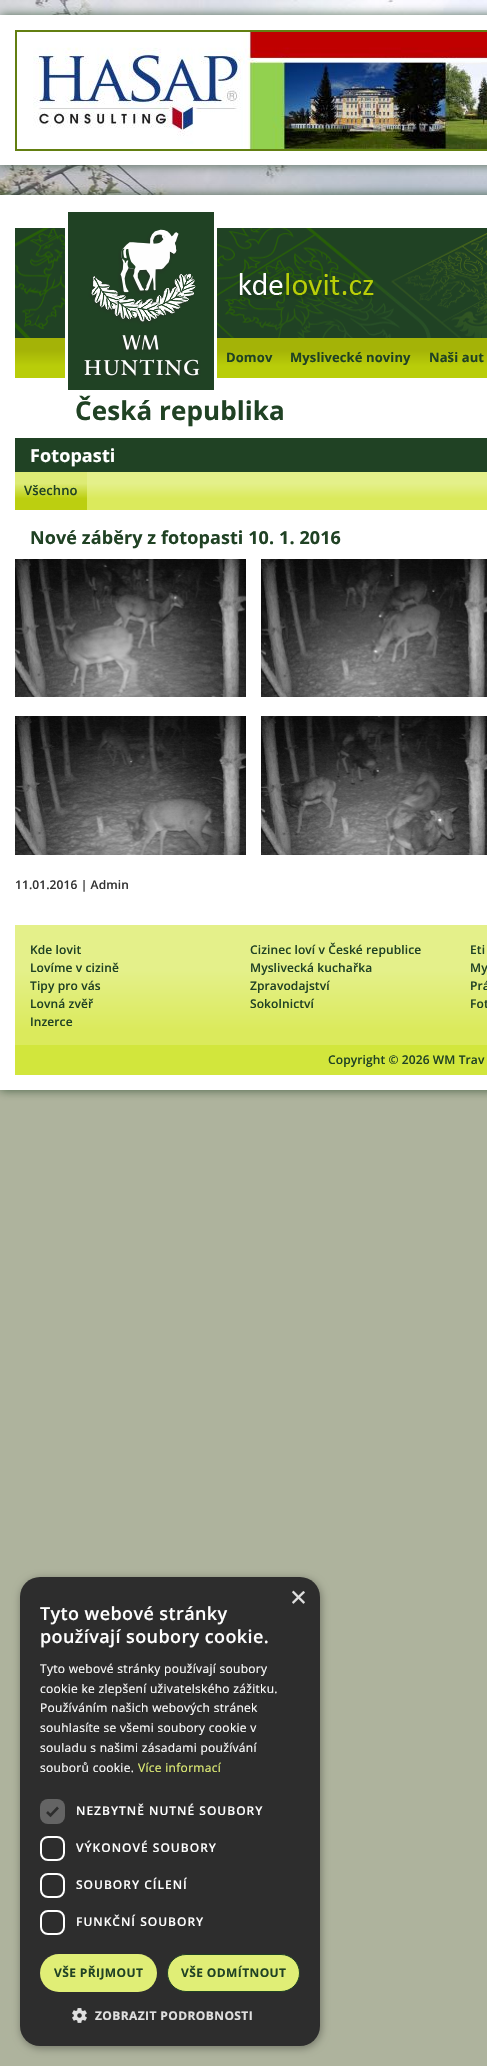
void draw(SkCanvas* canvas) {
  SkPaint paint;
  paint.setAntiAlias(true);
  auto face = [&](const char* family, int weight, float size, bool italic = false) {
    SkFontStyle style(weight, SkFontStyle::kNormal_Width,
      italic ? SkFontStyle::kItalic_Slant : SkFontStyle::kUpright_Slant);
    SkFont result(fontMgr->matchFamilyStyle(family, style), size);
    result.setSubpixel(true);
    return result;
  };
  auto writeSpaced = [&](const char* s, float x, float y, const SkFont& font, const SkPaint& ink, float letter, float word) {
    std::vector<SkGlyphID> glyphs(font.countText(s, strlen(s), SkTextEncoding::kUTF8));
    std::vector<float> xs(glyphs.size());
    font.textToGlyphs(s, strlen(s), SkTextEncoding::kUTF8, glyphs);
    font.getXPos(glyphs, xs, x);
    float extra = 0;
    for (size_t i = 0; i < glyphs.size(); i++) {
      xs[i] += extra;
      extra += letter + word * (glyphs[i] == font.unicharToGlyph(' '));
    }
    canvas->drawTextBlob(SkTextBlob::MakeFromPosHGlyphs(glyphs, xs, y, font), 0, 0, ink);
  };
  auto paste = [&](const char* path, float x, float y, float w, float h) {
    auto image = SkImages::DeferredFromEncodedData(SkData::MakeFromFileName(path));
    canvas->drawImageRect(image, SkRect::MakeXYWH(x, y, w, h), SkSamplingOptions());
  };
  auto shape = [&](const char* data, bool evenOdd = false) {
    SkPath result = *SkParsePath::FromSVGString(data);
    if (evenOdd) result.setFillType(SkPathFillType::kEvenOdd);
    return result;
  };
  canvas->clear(0xffaeb39d);
  paste("img/1.png", 0, 0, 487, 195);
  paint.setColor(0xbf204224);
  paint.setMaskFilter(SkMaskFilter::MakeBlur(kNormal_SkBlurStyle, 5));
  canvas->drawRect(SkRect::MakeXYWH(0, 15, 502, 150), paint);
  paint.setMaskFilter(nullptr);
  paint.setColor(0xffffffff);
  canvas->drawRect(SkRect::MakeXYWH(0, 15, 487, 150), paint);
  paint.setStroke(true);
  paint.setStrokeWidth(2);
  paint.setColor(0xff637f11);
  canvas->drawRect(SkRect::MakeXYWH(16, 31, 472, 119), paint);
  paste("img/2.png", 33, 32, 454, 117);
  paint.setStroke(false);
  paint.setColor(0xbf204224);
  paint.setMaskFilter(SkMaskFilter::MakeBlur(kNormal_SkBlurStyle, 5));
  canvas->drawRect(SkRect::MakeXYWH(0, 195, 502, 895), paint);
  paint.setMaskFilter(nullptr);
  paint.setColor(0xffffffff);
  canvas->drawRect(SkRect::MakeXYWH(0, 195, 487, 895), paint);
  paint.setColor(0xff204224);
  canvas->drawRect(SkRect::MakeXYWH(15, 228, 472, 110), paint);
  paste("img/4.png", 15, 228, 472, 110);
  {
    const SkColor colors[] = {0xffa4b307, 0xffb9cd09};
    const float stops[] = {0.3f, 0.7f};
    const SkPoint ends[] = {{480, 338}, {480, 378}};
    paint.setShader(SkGradientShader::MakeLinear(ends, colors, stops, 2, SkTileMode::kClamp));
    paint.setAlpha(255);
  }
  canvas->drawRect(SkRect::MakeXYWH(15, 338, 472, 40), paint);
  paint.setShader(nullptr);
  paint.setColor(0xffffffff);
  canvas->drawRect(SkRect::MakeXYWH(65, 228, 152, 150), paint);
  paste("img/3.png", 68, 212, 146, 178);
  paste("img/5.png", 238, 273, 136, 26);
  paint.setColor(0xff204224);
  canvas->drawRect(SkRect::MakeXYWH(15, 438, 472, 34), paint);
  {
    const SkColor colors[] = {0xffe4f08a, 0xffdbea5c};
    const float stops[] = {0.3f, 0.7f};
    const SkPoint ends[] = {{378, 472}, {378, 510}};
    paint.setShader(SkGradientShader::MakeLinear(ends, colors, stops, 2, SkTileMode::kClamp));
    paint.setAlpha(255);
  }
  canvas->drawRect(SkRect::MakeXYWH(87, 472, 400, 38), paint);
  {
    const SkColor colors[] = {0xffddeb75, 0xffbccf10};
    const float stops[] = {0.3f, 0.7f};
    const SkPoint ends[] = {{51, 472}, {51, 510}};
    paint.setShader(SkGradientShader::MakeLinear(ends, colors, stops, 2, SkTileMode::kClamp));
    paint.setAlpha(255);
  }
  canvas->drawRect(SkRect::MakeXYWH(15, 472, 72, 38), paint);
  paste("img/6.png", 15, 559, 231, 138);
  paste("img/7.png", 261, 559, 226, 138);
  paste("img/8.png", 15, 716, 231, 139);
  paste("img/9.png", 261, 716, 226, 139);
  {
    const SkColor colors[] = {0xffe4f08a, 0xffdbea5c};
    const float stops[] = {0.3f, 0.7f};
    const SkPoint ends[] = {{480, 925}, {480, 1075}};
    paint.setShader(SkGradientShader::MakeLinear(ends, colors, stops, 2, SkTileMode::kClamp));
    paint.setAlpha(255);
  }
  canvas->drawRect(SkRect::MakeXYWH(15, 925, 472, 120), paint);
  paint.setShader(nullptr);
  paint.setColor(0xffd2e63c);
  canvas->drawRect(SkRect::MakeXYWH(15, 1045, 472, 30), paint);
  paint.setColor(0x59000000);
  paint.setMaskFilter(SkMaskFilter::MakeBlur(kNormal_SkBlurStyle, 4));
  canvas->drawRoundRect(SkRect::MakeXYWH(21, 1579, 300, 469), 20, 20, paint);
  paint.setMaskFilter(nullptr);
  paint.setColor(0xff2d2d2d);
  canvas->drawRoundRect(SkRect::MakeXYWH(20, 1577, 300, 469), 20, 20, paint);
  paint.setColor(0xff646464);
  canvas->drawRoundRect(SkRect::MakeXYWH(40, 1799, 25, 25), 8, 8, paint);
  paint.setStroke(true);
  paint.setStrokeWidth(2.6f);
  paint.setColor(0xff2d2d2d);
  canvas->drawPath(shape("M47 1812L50.5 1815.5L58 1807.5"), paint);
  paint.setStrokeWidth(2);
  paint.setColor(0xffffffff);
  canvas->drawRoundRect(SkRect::MakeXYWH(41, 1837, 23, 23), 7, 7, paint);
  canvas->drawRoundRect(SkRect::MakeXYWH(41, 1874, 23, 23), 7, 7, paint);
  canvas->drawRoundRect(SkRect::MakeXYWH(41, 1911, 23, 23), 7, 7, paint);
  paint.setStroke(false);
  paint.setColor(0xffe0ee76);
  canvas->drawRoundRect(SkRect::MakeXYWH(40, 1954, 117, 38), 19, 19, paint);
  canvas->drawRoundRect(SkRect::MakeXYWH(167.5f, 1954.5f, 132, 37), 18.5f, 18.5f, paint);
  paint.setStroke(true);
  paint.setStrokeWidth(1);
  paint.setColor(0xff204224);
  canvas->drawRoundRect(SkRect::MakeXYWH(167.5f, 1954.5f, 132, 37), 18.5f, 18.5f, paint);
  paste("img/10.png", 72, 2008, 15, 15);
  auto f0 = face("Open Sans", 700, 13);
  paint.setStroke(false);
  {
    const struct { const char* s; float x, y; } items[] = {
      {"Domov", 226, 362},
      {"Myslivecké noviny", 290, 362},
      {"Naši aut", 429, 362},
    };
    for (auto [s, x, y] : items) {
      writeSpaced(s, x, y, f0, paint, 0.1f, 0);
    }
  }
  auto f1 = face("Open Sans", 700, 26);
  writeSpaced("Česká republika", 75, 420, f1, paint, 0.1f, 0);
  auto f2 = face("Open Sans", 700, 18);
  paint.setColor(0xffffffff);
  writeSpaced("Fotopasti", 30, 462, f2, paint, 0.1f, 0);
  auto f3 = face("Open Sans", 600, 13);
  paint.setColor(0xff204224);
  writeSpaced("Všechno", 24, 495, f3, paint, 0.1f, 0);
  writeSpaced("Nové záběry z fotopasti 10. 1. 2016", 30, 544, f2, paint, 0.1f, 0);
  auto f4 = face("Open Sans", 600, 12);
  paint.setColor(0xff333333);
  writeSpaced("11.01.2016 | Admin", 15, 889, f4, paint, 0.1f, 0);
  paint.setColor(0xff204224);
  {
    const struct { const char* s; float x, y; } items[] = {
      {"Kde lovit", 30, 954},
      {"Cizinec loví v České republice", 250, 954},
      {"Eti", 470, 954},
      {"Lovíme v cizině", 30, 972},
      {"Myslivecká kuchařka", 250, 972},
      {"My", 470, 972},
      {"Tipy pro vás", 30, 990},
      {"Zpravodajství", 250, 990},
      {"Prá", 470, 990},
      {"Lovná zvěř", 30, 1008},
      {"Sokolnictví", 250, 1008},
      {"Fot", 470, 1008},
      {"Inzerce", 30, 1026},
      {"Copyright © 2026 WM Trav", 328, 1064},
    };
    for (auto [s, x, y] : items) {
      writeSpaced(s, x, y, f4, paint, 0.1f, 0);
    }
  }
  auto f5 = face("Liberation Sans", 400, 29);
  paint.setColor(0xffe0e0e0);
  canvas->drawString("×", 290, 1607, f5, paint);
  auto f6 = face("Open Sans", 600, 18);
  paint.setColor(0xffffffff);
  writeSpaced("Tyto webové stránky", 40, 1620, f6, paint, 0.4f, 0);
  writeSpaced("používají soubory cookie.", 40, 1643, f6, paint, 0.4f, 0);
  auto f7 = face("Open Sans", 400, 12);
  {
    const struct { const char* s; float x, y; } items[] = {
      {"Tyto webové stránky používají soubory", 40, 1673},
      {"cookie ke zlepšení uživatelského zážitku.", 40, 1693},
      {"Používáním našich webových stránek", 40, 1712},
      {"souhlasíte se všemi soubory cookie v", 40, 1732},
      {"souladu s našimi zásadami používání", 40, 1752},
      {"souborů cookie.", 40, 1772},
    };
    for (auto [s, x, y] : items) {
      writeSpaced(s, x, y, f7, paint, 0.3f, 0);
    }
  }
  paint.setColor(0xffe0ee76);
  writeSpaced("Více informací", 138, 1772, f7, paint, 0.3f, 0);
  paint.setColor(0xffffffff);
  {
    const struct { const char* s; float x, y; } items[] = {
      {"NEZBYTNĚ NUTNÉ SOUBORY", 76, 1815},
      {"VÝKONOVÉ SOUBORY", 76, 1852},
      {"SOUBORY CÍLENÍ", 76, 1889},
      {"FUNKČNÍ SOUBORY", 76, 1926},
    };
    for (auto [s, x, y] : items) {
      writeSpaced(s, x, y, f4, paint, 1, 0);
    }
  }
  auto f8 = face("Open Sans", 700, 12);
  paint.setColor(0xff204224);
  writeSpaced("VŠE PŘIJMOUT", 54, 1977, f8, paint, 0.4f, 0);
  writeSpaced("VŠE ODMÍTNOUT", 181, 1977, f8, paint, 0.4f, 0);
  paint.setColor(0xffe0e0e0);
  writeSpaced("ZOBRAZIT PODROBNOSTI", 95, 2020, f8, paint, 0.4f, 0);
}
